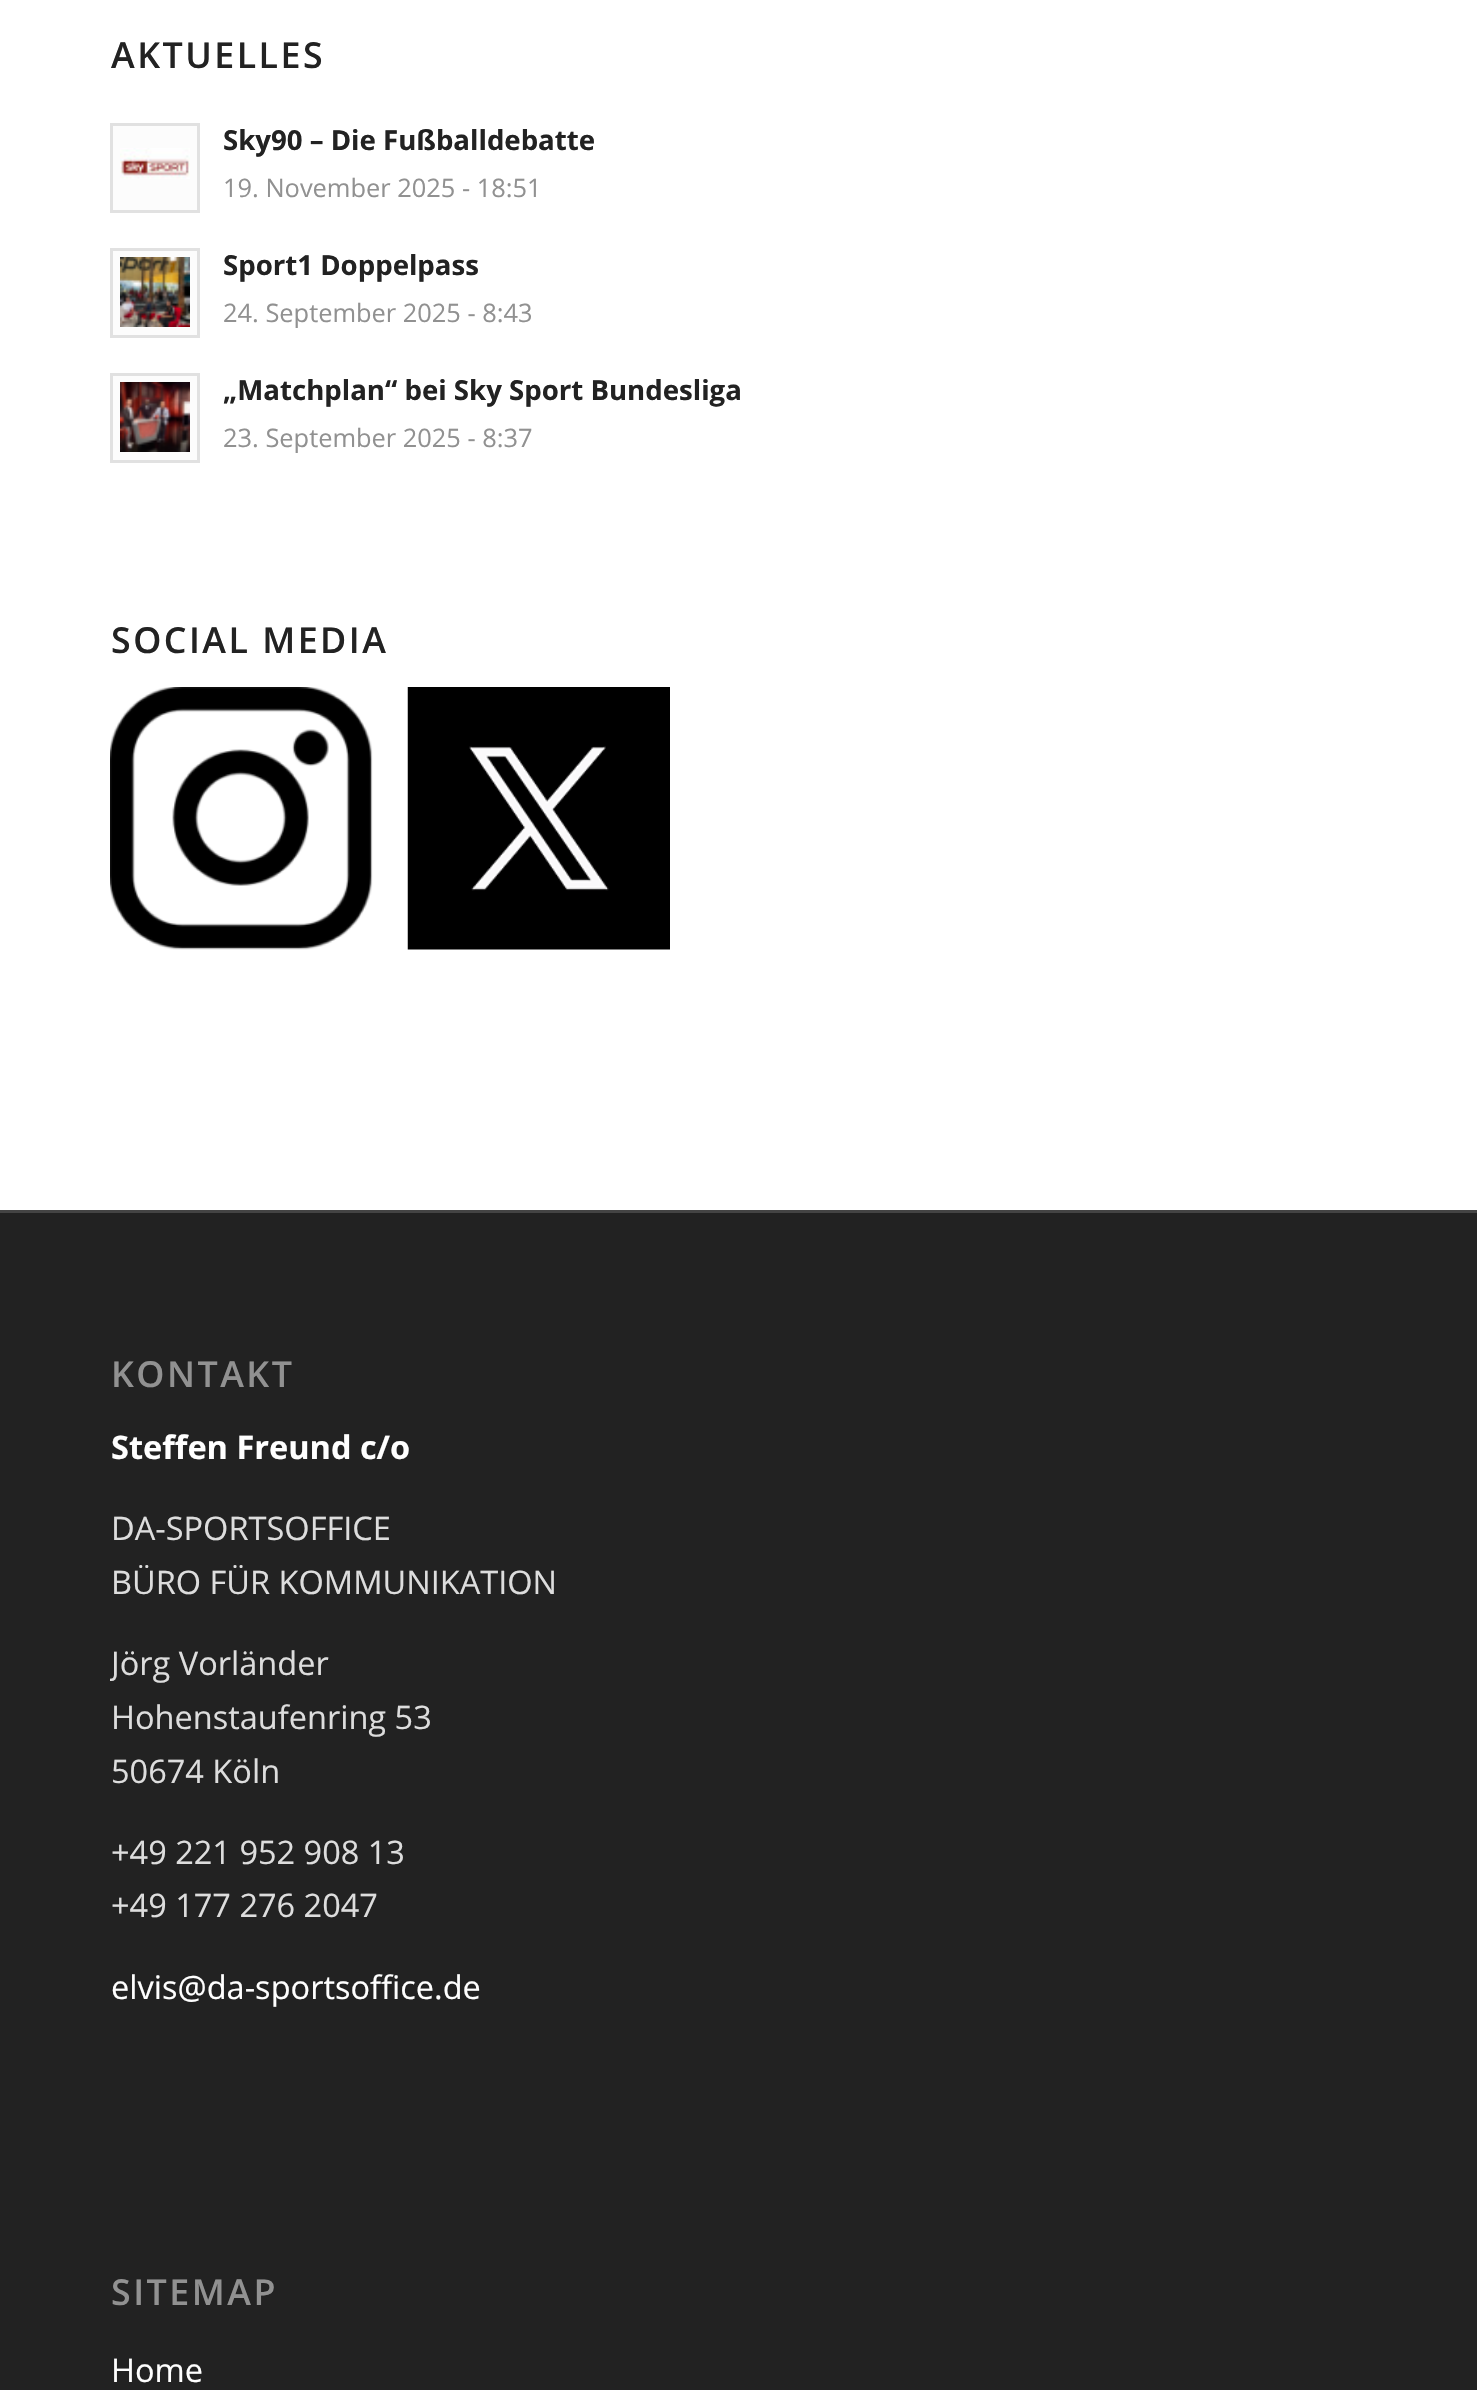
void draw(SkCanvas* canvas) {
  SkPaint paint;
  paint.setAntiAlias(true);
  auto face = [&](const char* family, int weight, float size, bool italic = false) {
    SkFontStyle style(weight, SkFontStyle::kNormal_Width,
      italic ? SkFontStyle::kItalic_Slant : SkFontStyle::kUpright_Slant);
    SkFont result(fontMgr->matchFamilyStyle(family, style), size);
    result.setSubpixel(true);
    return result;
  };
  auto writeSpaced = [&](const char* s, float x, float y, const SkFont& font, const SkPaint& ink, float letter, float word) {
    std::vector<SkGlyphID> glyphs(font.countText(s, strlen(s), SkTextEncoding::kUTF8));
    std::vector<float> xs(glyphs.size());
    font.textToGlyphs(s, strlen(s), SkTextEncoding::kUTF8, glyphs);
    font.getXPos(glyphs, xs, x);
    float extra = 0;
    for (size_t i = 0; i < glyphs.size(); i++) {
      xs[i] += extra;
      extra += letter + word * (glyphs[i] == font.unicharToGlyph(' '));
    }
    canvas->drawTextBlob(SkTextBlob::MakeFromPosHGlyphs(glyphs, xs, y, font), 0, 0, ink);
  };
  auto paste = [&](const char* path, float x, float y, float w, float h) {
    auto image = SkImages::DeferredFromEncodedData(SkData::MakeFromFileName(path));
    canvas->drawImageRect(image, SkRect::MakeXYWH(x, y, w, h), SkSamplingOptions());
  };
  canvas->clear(0xffffffff);
  paint.setColor(0xfffcfcfc);
  canvas->drawRect(SkRect::MakeXYWH(111.5f, 124.5f, 87, 87), paint);
  paint.setStroke(true);
  paint.setStrokeWidth(3);
  paint.setColor(0xffe1e1e1);
  canvas->drawRect(SkRect::MakeXYWH(111.5f, 124.5f, 87, 87), paint);
  paste("img/1.png", 120, 148, 70, 31);
  paint.setStroke(false);
  paint.setColor(0xfffcfcfc);
  canvas->drawRect(SkRect::MakeXYWH(111.5f, 249.5f, 87, 87), paint);
  paint.setStroke(true);
  paint.setColor(0xffe1e1e1);
  canvas->drawRect(SkRect::MakeXYWH(111.5f, 249.5f, 87, 87), paint);
  paste("img/2.png", 120, 257, 70, 70);
  paint.setStroke(false);
  paint.setColor(0xfffcfcfc);
  canvas->drawRect(SkRect::MakeXYWH(111.5f, 374.5f, 87, 87), paint);
  paint.setStroke(true);
  paint.setColor(0xffe1e1e1);
  canvas->drawRect(SkRect::MakeXYWH(111.5f, 374.5f, 87, 87), paint);
  paste("img/3.png", 120, 382, 70, 70);
  paste("img/4.png", 110, 687, 263, 263);
  paste("img/5.png", 407, 687, 263, 263);
  paint.setStroke(false);
  paint.setColor(0xff222222);
  canvas->drawRect(SkRect::MakeXYWH(0, 1213, 1477, 1177), paint);
  paint.setColor(0xff444444);
  canvas->drawRect(SkRect::MakeXYWH(0, 1210, 1477, 3), paint);
  auto f0 = face("Open Sans", 600, 35.75f);
  paint.setColor(0xff222222);
  writeSpaced("AKTUELLES", 111, 68, f0, paint, 2.5f, 0);
  auto f1 = face("Open Sans", 700, 27.6f);
  canvas->drawString("Sky90 – Die Fußballdebatte", 223, 150, f1, paint);
  auto f2 = face("Open Sans", 400, 25.4f);
  paint.setColor(0xff919191);
  canvas->drawString("19. November 2025 - 18:51", 223, 197, f2, paint);
  paint.setColor(0xff222222);
  canvas->drawString("Sport1 Doppelpass", 223, 275, f1, paint);
  paint.setColor(0xff919191);
  canvas->drawString("24. September 2025 - 8:43", 223, 322, f2, paint);
  paint.setColor(0xff222222);
  canvas->drawString("„Matchplan“ bei Sky Sport Bundesliga", 223, 400, f1, paint);
  paint.setColor(0xff919191);
  canvas->drawString("23. September 2025 - 8:37", 223, 447, f2, paint);
  paint.setColor(0xff222222);
  writeSpaced("SOCIAL MEDIA", 111, 653, f0, paint, 2.5f, 0);
  paint.setColor(0xff919191);
  writeSpaced("KONTAKT", 111, 1387, f0, paint, 2.5f, 0);
  auto f3 = face("Open Sans", 700, 32.5f);
  paint.setColor(0xffffffff);
  canvas->drawString("Steffen Freund c/o", 111, 1459, f3, paint);
  auto f4 = face("Open Sans", 400, 32.5f);
  paint.setColor(0xffdddddd);
  canvas->drawString("DA-SPORTSOFFICE", 111, 1540, f4, paint);
  canvas->drawString("BÜRO FÜR KOMMUNIKATION", 111, 1594, f4, paint);
  canvas->save();
  canvas->clipRect(SkRect::MakeXYWH(110, 1325, 1258, 718));
  canvas->drawString("Jörg Vorländer", 111, 1675, f4, paint);
  canvas->restore();
  {
    const struct { const char* s; float x, y; } items[] = {
      {"Hohenstaufenring 53", 111, 1729},
      {"50674 Köln", 111, 1783},
      {"+49 221 952 908 13", 111, 1864},
      {"+49 177 276 2047", 111, 1917},
    };
    for (auto [s, x, y] : items) {
      canvas->drawString(s, x, y, f4, paint);
    }
  }
  paint.setColor(0xffffffff);
  canvas->drawString("elvis@da-sportsoffice.de", 111, 1999, f4, paint);
  paint.setColor(0xff919191);
  writeSpaced("SITEMAP", 111, 2305, f0, paint, 2.5f, 0);
  paint.setColor(0xffffffff);
  canvas->drawString("Home", 111, 2382, f4, paint);
}
